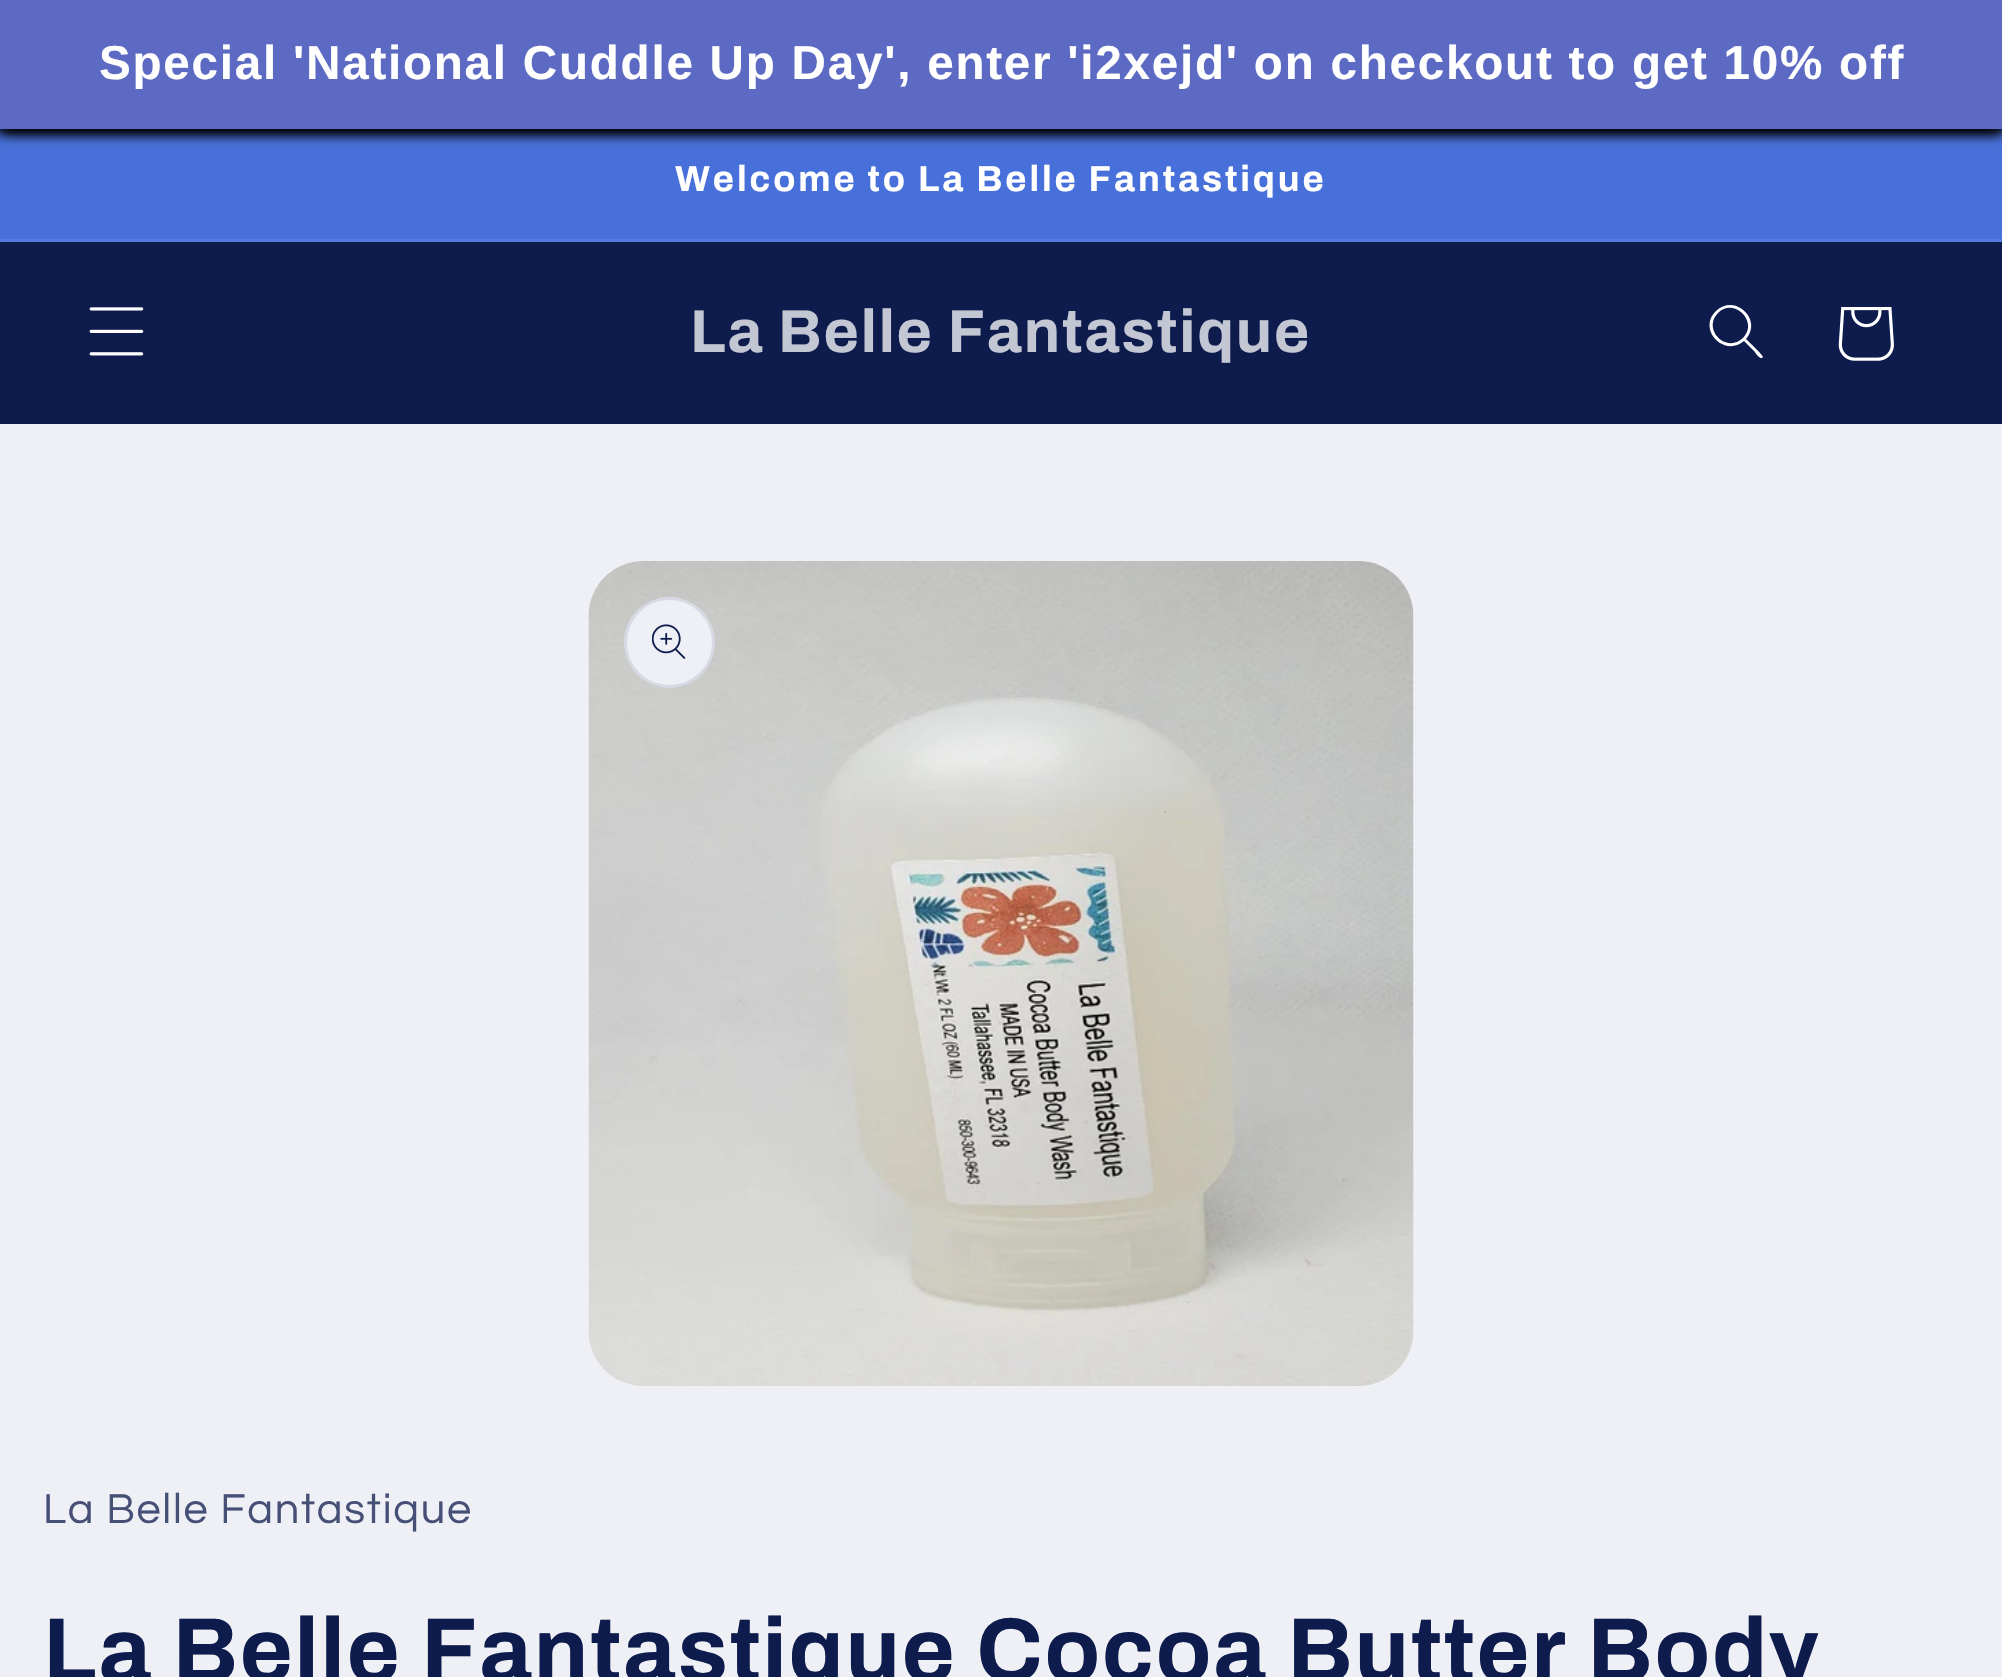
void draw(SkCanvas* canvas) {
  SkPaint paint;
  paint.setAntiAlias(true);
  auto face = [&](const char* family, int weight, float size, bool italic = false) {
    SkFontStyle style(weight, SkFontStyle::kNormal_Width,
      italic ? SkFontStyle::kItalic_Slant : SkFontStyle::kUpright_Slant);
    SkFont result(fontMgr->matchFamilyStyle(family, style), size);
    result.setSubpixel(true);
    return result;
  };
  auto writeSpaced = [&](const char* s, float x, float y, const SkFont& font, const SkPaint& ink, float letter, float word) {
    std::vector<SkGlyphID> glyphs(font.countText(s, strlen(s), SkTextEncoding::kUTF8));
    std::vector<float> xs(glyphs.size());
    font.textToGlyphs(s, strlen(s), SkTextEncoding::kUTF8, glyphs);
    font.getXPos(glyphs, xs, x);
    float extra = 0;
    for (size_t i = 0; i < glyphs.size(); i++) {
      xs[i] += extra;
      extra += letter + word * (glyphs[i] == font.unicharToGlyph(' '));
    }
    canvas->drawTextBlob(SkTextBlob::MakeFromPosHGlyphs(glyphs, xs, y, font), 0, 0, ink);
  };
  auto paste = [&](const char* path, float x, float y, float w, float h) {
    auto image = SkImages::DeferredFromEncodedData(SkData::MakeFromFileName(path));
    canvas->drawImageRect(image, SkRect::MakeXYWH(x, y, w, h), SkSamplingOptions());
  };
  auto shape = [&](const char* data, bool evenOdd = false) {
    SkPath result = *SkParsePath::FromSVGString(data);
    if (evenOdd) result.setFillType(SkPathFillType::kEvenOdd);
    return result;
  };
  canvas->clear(0xffeff0f5);
  paint.setColor(0xff4770db);
  canvas->drawRect(SkRect::MakeXYWH(0, 129, 2002, 110), paint);
  paint.setColor(0xff000000);
  paint.setMaskFilter(SkMaskFilter::MakeBlur(kNormal_SkBlurStyle, 7));
  canvas->drawRect(SkRect::MakeXYWH(0, 0, 2002, 129), paint);
  paint.setMaskFilter(nullptr);
  paint.setMaskFilter(SkMaskFilter::MakeBlur(kNormal_SkBlurStyle, 7));
  canvas->drawRect(SkRect::MakeXYWH(0, 0, 2002, 129), paint);
  paint.setMaskFilter(nullptr);
  paint.setMaskFilter(SkMaskFilter::MakeBlur(kNormal_SkBlurStyle, 7));
  canvas->drawRect(SkRect::MakeXYWH(0, 0, 2002, 129), paint);
  paint.setMaskFilter(nullptr);
  paint.setMaskFilter(SkMaskFilter::MakeBlur(kNormal_SkBlurStyle, 7));
  canvas->drawRect(SkRect::MakeXYWH(0, 0, 2002, 129), paint);
  paint.setMaskFilter(nullptr);
  {
    const struct { float x, y, w, h; SkColor color; } items[] = {
      {0, 0, 2002, 129, 0xff5c6ac4},
      {0, 239, 2002, 3, 0xff567bde},
      {0, 242, 2002, 182, 0xff0e1b4d},
    };
    for (auto [x, y, w, h, color] : items) {
      paint.setColor(color);
      canvas->drawRect(SkRect::MakeXYWH(x, y, w, h), paint);
    }
  }
  paste("img/1.png", 89, 307, 55, 49);
  paint.setColor(0xffffffff);
  canvas->drawPath(shape("M1743 338C1726 354 1702 329 1718 313C1734 297 1759 322 1743 338ZM1744 341C1724 358 1697 329 1716 311C1735 293 1763 320 1746 339C1748 341 1763 355 1763 357L1762 358C1760 359 1755 353 1755 352Z", true), paint);
  paste("img/2.png", 1838, 307, 56, 54);
  paste("img/3.png", 588, 561, 826, 825);
  paint.setColor(0xffeff0f5);
  canvas->drawCircle(669.5f, 642.5f, 45.5f, paint);
  paint.setStroke(true);
  paint.setStrokeWidth(3);
  paint.setColor(0x1a0e1b4d);
  canvas->drawCircle(669.5f, 642.5f, 44, paint);
  paste("img/4.png", 652, 624, 34, 35);
  auto f0 = face("Liberation Sans", 700, 47.65f);
  paint.setStroke(false);
  paint.setColor(0xffffffff);
  writeSpaced("Special 'National Cuddle Up Day', enter 'i2xejd' on checkout to get 10% off", 99, 79, f0, paint, 1.73f, 0);
  auto f1 = face("Archivo", 700, 36.25f);
  writeSpaced("Welcome to La Belle Fantastique", 675, 191, f1, paint, 2.9f, 0);
  auto f2 = face("Archivo", 700, 60.5f);
  paint.setColor(0xffc3c6d3);
  writeSpaced("La Belle Fantastique", 690, 352, f2, paint, 1.8f, 0);
  auto f3 = face("Questrial", 400, 43.25f);
  paint.setColor(0xff465077);
  writeSpaced("La Belle Fantastique", 43, 1523, f3, paint, 1.73f, 0);
  auto f4 = face("Archivo", 700, 90.75f);
  paint.setColor(0xff0e1b4d);
  writeSpaced("La Belle Fantastique Cocoa Butter Body", 43, 1681, f4, paint, 1.8f, 0);
}
